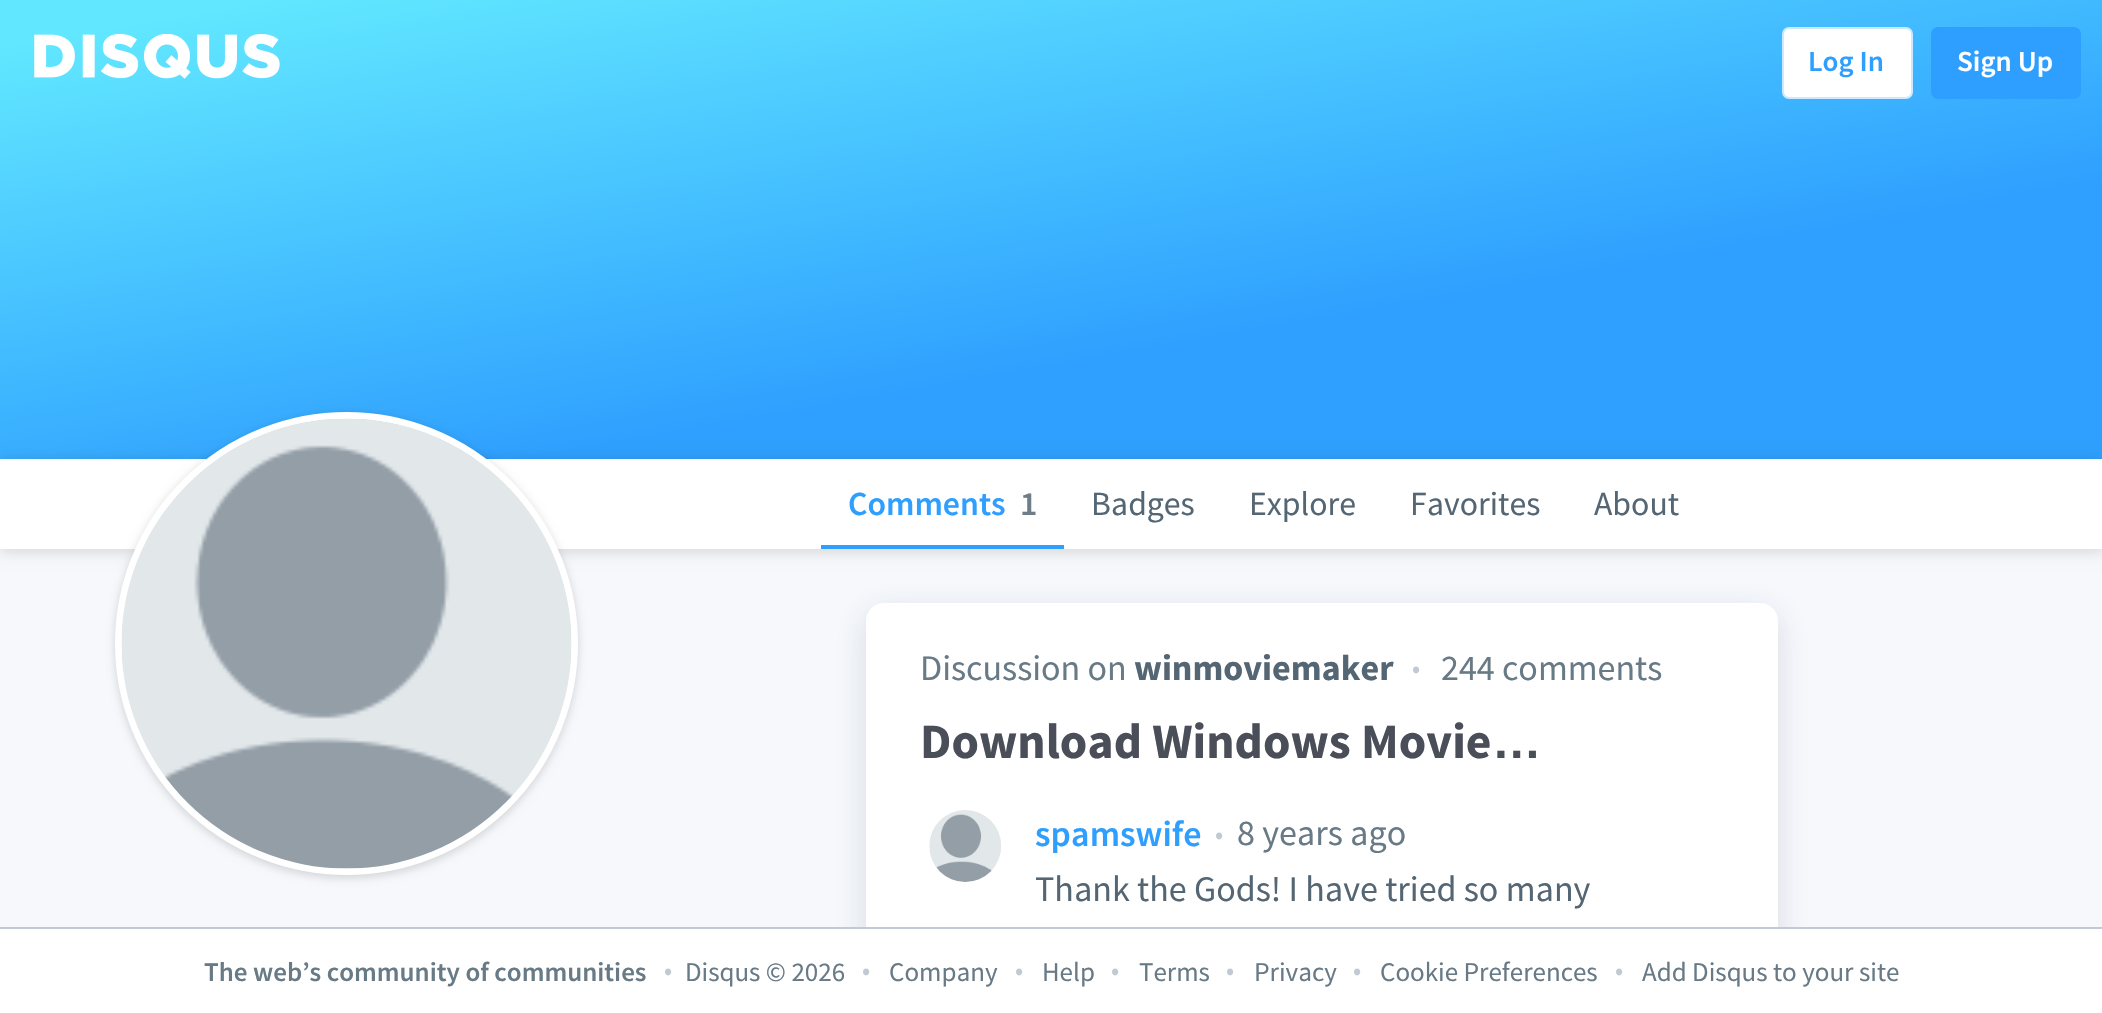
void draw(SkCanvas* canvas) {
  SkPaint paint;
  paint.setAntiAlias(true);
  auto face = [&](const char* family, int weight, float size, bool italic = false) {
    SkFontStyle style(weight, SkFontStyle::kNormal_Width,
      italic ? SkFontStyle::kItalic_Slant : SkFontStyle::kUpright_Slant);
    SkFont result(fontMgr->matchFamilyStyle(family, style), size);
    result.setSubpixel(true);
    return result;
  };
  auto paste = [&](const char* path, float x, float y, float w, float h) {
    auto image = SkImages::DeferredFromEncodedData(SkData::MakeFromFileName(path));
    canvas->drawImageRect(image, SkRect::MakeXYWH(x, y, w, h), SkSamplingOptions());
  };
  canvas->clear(0xfff6f8fc);
  {
    const SkColor colors[] = {0xff61e7ff, 0xff2fa0ff};
    const float stops[] = {0.05f, 0.6f};
    const SkPoint ends[] = {{973, -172}, {1131, 721}};
    paint.setShader(SkGradientShader::MakeLinear(ends, colors, stops, 2, SkTileMode::kClamp));
    paint.setAlpha(255);
  }
  canvas->drawRect(SkRect::MakeXYWH(0, 0, 2102, 459), paint);
  paste("img/1.png", 34, 34, 246, 45);
  paint.setShader(nullptr);
  paint.setColor(0xffffffff);
  canvas->drawRoundRect(SkRect::MakeXYWH(1783, 28, 129, 70), 6, 6, paint);
  paint.setStroke(true);
  paint.setStrokeWidth(2);
  paint.setColor(0xffcce9ff);
  canvas->drawRoundRect(SkRect::MakeXYWH(1783, 28, 129, 70), 6, 6, paint);
  paint.setStroke(false);
  paint.setColor(0xff2e9fff);
  canvas->drawRoundRect(SkRect::MakeXYWH(1932, 28, 148, 70), 6, 6, paint);
  paint.setStroke(true);
  canvas->drawRoundRect(SkRect::MakeXYWH(1932, 28, 148, 70), 6, 6, paint);
  paint.setStroke(false);
  paint.setColor(0x26000000);
  paint.setMaskFilter(SkMaskFilter::MakeBlur(kNormal_SkBlurStyle, 7));
  canvas->drawRect(SkRect::MakeXYWH(0, 461, 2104, 90), paint);
  paint.setMaskFilter(nullptr);
  paint.setColor(0xffffffff);
  canvas->drawRect(SkRect::MakeXYWH(0, 459, 2102, 90), paint);
  paint.setColor(0xff2e9fff);
  canvas->drawRect(SkRect::MakeXYWH(821, 545, 243, 4), paint);
  paint.setColor(0x26000000);
  paint.setMaskFilter(SkMaskFilter::MakeBlur(kNormal_SkBlurStyle, 4.5f));
  canvas->drawRoundRect(SkRect::MakeXYWH(115, 414, 463, 464), 231.5f, 231.5f, paint);
  paint.setMaskFilter(nullptr);
  paint.setStroke(true);
  paint.setStrokeWidth(7);
  paint.setColor(0xffffffff);
  canvas->drawCircle(346.5f, 643.5f, 228, paint);
  paste("img/2.png", 121, 418, 451, 451);
  paint.setStroke(false);
  paint.setColor(0x2622374d);
  paint.setMaskFilter(SkMaskFilter::MakeBlur(kNormal_SkBlurStyle, 16));
  canvas->drawRoundRect(SkRect::MakeXYWH(866, 612, 912, 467), 18, 18, paint);
  paint.setMaskFilter(nullptr);
  paint.setColor(0xffffffff);
  canvas->drawRoundRect(SkRect::MakeXYWH(866, 603, 912, 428), 18, 18, paint);
  paste("img/3.png", 929, 810, 72, 72);
  canvas->drawRect(SkRect::MakeXYWH(0, 929, 2102, 84), paint);
  paint.setColor(0xffc2c9d4);
  canvas->drawRect(SkRect::MakeXYWH(0, 927, 2102, 2), paint);
  auto f0 = face("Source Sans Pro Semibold", 600, 29);
  paint.setColor(0xff2e9fff);
  canvas->drawString("Log In", 1808, 71, f0, paint);
  paint.setColor(0xffffffff);
  canvas->drawString("Sign Up", 1957, 71, f0, paint);
  auto f1 = face("Source Sans Pro Semibold", 600, 33.75f);
  paint.setColor(0xff2e9fff);
  canvas->drawString("Comments", 848, 515, f1, paint);
  paint.setColor(0xff6e7d88);
  canvas->drawString("1", 1020, 515, f1, paint);
  auto f2 = face("Source Sans Pro", 400, 33.75f);
  paint.setColor(0xff546673);
  {
    const struct { const char* s; float x, y; } items[] = {
      {"Badges", 1091, 515},
      {"Explore", 1249, 515},
      {"Favorites", 1410, 515},
      {"About", 1594, 515},
    };
    for (auto [s, x, y] : items) {
      canvas->drawString(s, x, y, f2, paint);
    }
  }
  auto f3 = face("Source Sans Pro", 400, 36);
  paint.setColor(0xff687a86);
  canvas->drawString("Discussion on", 920, 680, f3, paint);
  auto f4 = face("Source Sans Pro", 700, 36);
  paint.setColor(0xff546673);
  canvas->drawString("winmoviemaker", 1134, 680, f4, paint);
  auto f5 = face("Source Sans Pro", 400, 27);
  paint.setColor(0xffc2c9d4);
  canvas->drawString("•", 1412, 677, f5, paint);
  paint.setColor(0xff687a86);
  canvas->drawString("244 comments", 1441, 680, f3, paint);
  auto f6 = face("Source Sans Pro", 700, 49.5f);
  paint.setColor(0xff494e58);
  canvas->drawString("Download Windows Movie", 920, 758, f6, paint);
  auto f7 = face("Liberation Sans", 700, 49.5f);
  canvas->drawString("…", 1492, 758, f7, paint);
  auto f8 = face("Source Sans Pro Semibold", 600, 36);
  paint.setColor(0xff2e9fff);
  canvas->drawString("spamswife", 1035, 846, f8, paint);
  paint.setColor(0xffc2c9d4);
  canvas->drawString("•", 1215, 843, f5, paint);
  paint.setColor(0xff687a86);
  canvas->drawString("8 years ago", 1237, 845, f3, paint);
  paint.setColor(0xff546673);
  canvas->drawString("Thank the Gods! I have tried so many", 1035, 901, f3, paint);
  auto f9 = face("Source Sans Pro Semibold", 600, 27);
  paint.setColor(0xff687a86);
  canvas->drawString("The web’s community of communities", 204, 981, f9, paint);
  paint.setColor(0xffc2c9d4);
  canvas->drawString("•", 664, 979, f5, paint);
  paint.setColor(0xff687a86);
  canvas->drawString("Disqus © 2026", 685, 981, f5, paint);
  paint.setColor(0xffc2c9d4);
  canvas->drawString("•", 862, 979, f5, paint);
  paint.setColor(0xff687a86);
  canvas->drawString("Company", 889, 981, f5, paint);
  paint.setColor(0xffc2c9d4);
  canvas->drawString("•", 1015, 979, f5, paint);
  paint.setColor(0xff687a86);
  canvas->drawString("Help", 1042, 981, f5, paint);
  paint.setColor(0xffc2c9d4);
  canvas->drawString("•", 1111, 979, f5, paint);
  paint.setColor(0xff687a86);
  canvas->drawString("Terms", 1139, 981, f5, paint);
  paint.setColor(0xffc2c9d4);
  canvas->drawString("•", 1226, 979, f5, paint);
  paint.setColor(0xff687a86);
  canvas->drawString("Privacy", 1254, 981, f5, paint);
  paint.setColor(0xffc2c9d4);
  canvas->drawString("•", 1353, 979, f5, paint);
  paint.setColor(0xff687a86);
  canvas->drawString("Cookie Preferences", 1380, 981, f5, paint);
  paint.setColor(0xffc2c9d4);
  canvas->drawString("•", 1615, 979, f5, paint);
  paint.setColor(0xff687a86);
  canvas->drawString("Add Disqus to your site", 1642, 981, f5, paint);
}
